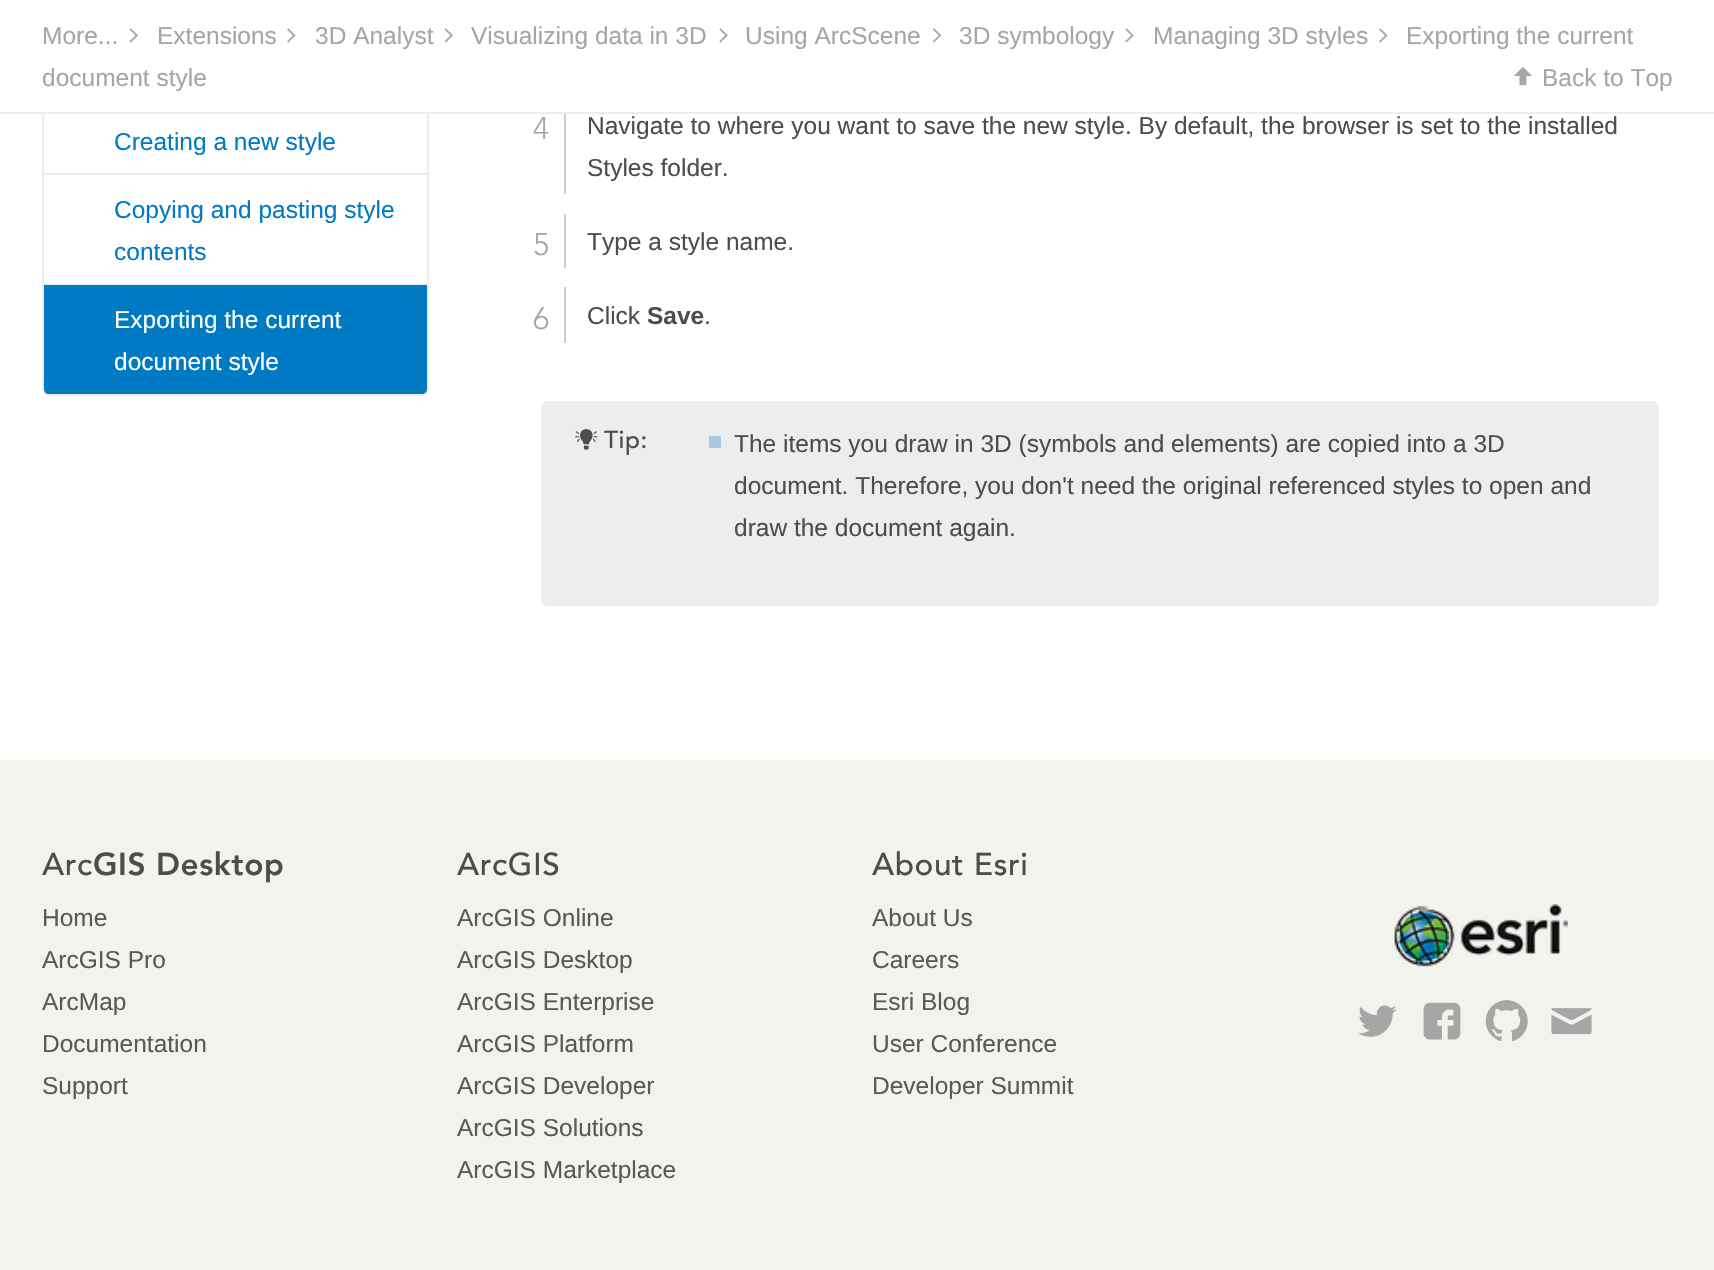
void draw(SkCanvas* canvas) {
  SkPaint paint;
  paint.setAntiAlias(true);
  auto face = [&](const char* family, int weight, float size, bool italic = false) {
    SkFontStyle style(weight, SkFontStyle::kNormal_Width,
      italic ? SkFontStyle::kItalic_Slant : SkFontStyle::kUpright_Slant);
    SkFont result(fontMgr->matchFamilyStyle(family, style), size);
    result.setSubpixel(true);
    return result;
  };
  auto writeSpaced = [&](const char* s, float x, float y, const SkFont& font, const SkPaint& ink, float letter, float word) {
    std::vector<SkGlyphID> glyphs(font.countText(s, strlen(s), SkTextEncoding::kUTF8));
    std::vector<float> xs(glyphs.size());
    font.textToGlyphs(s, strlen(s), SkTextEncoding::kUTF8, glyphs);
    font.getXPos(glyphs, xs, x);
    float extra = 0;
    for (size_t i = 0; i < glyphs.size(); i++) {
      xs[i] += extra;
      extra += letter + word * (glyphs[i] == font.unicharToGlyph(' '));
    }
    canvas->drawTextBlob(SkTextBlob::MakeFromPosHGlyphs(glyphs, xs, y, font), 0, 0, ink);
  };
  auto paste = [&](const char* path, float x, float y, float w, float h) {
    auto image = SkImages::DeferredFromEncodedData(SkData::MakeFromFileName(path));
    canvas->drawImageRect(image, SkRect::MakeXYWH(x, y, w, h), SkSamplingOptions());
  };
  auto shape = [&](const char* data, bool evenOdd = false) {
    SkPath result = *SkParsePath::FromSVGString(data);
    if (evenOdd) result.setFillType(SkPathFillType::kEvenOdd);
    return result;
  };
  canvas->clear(0xffffffff);
  paint.setStroke(true);
  paint.setStrokeWidth(2);
  paint.setColor(0xffededed);
  canvas->drawRoundRect(SkRect::MakeXYWH(43, -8, 385, 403), 6, 6, paint);
  paint.setStroke(false);
  paint.setColor(0xffffffff);
  canvas->drawRect(SkRect::MakeXYWH(42, 0, 387, 112), paint);
  paint.setColor(0xffededed);
  canvas->drawRect(SkRect::MakeXYWH(0, 112, 1714, 2), paint);
  paste("img/1.png", 129, 28, 9, 15);
  paste("img/2.png", 287, 28, 9, 15);
  paste("img/1.png", 444, 28, 9, 15);
  paste("img/3.png", 719, 28, 9, 15);
  paste("img/4.png", 932, 28, 10, 15);
  paste("img/3.png", 1125, 28, 9, 15);
  paste("img/2.png", 1379, 28, 9, 15);
  paste("img/5.png", 1514, 67, 18, 19);
  canvas->drawRect(SkRect::MakeXYWH(44, 173, 383, 2), paint);
  canvas->drawRect(SkRect::MakeXYWH(44, 284, 383, 1), paint);
  paint.setColor(0xff007ac2);
  canvas->drawPath(shape("M44 285H427V389C427 392 425 394 422 394H49C46 394 44 392 44 389Z"), paint);
  {
    const struct { float x, y, w, h; SkColor color; } items[] = {
      {564, 114, 2, 80, 0xffcccccc},
      {564, 214, 2, 54, 0xffcccccc},
      {564, 287, 2, 56, 0xffcccccc},
    };
    for (auto [x, y, w, h, color] : items) {
      paint.setColor(color);
      canvas->drawRect(SkRect::MakeXYWH(x, y, w, h), paint);
    }
  }
  paint.setColor(0xffededed);
  canvas->drawRoundRect(SkRect::MakeXYWH(541, 401, 1118, 205), 7, 7, paint);
  paste("img/6.png", 575, 429, 23, 21);
  paint.setColor(0xffa8c9e3);
  canvas->drawRect(SkRect::MakeXYWH(709, 436, 12, 12), paint);
  paint.setColor(0xfff3f3ee);
  canvas->drawRect(SkRect::MakeXYWH(0, 760, 1714, 510), paint);
  paste("img/7.png", 1393, 899, 175, 71);
  paste("img/8.png", 1358, 1005, 39, 32);
  paste("img/9.png", 1423, 1002, 38, 38);
  paste("img/10.png", 1485, 1000, 43, 42);
  paste("img/11.png", 1551, 1008, 41, 27);
  auto f0 = face("Liberation Sans", 400, 24.5f);
  paint.setColor(0xffa6a6a6);
  {
    const struct { const char* s; float x, y; } items[] = {
      {"More...", 42, 44},
      {"Extensions", 157, 44},
      {"3D Analyst", 315, 44},
      {"Visualizing data in 3D", 471, 44},
      {"Using ArcScene", 745, 44},
      {"3D symbology", 959, 44},
      {"Managing 3D styles", 1153, 44},
      {"Exporting the current", 1406, 44},
      {"document style", 42, 86},
      {"Back to Top", 1542, 86},
    };
    for (auto [s, x, y] : items) {
      canvas->drawString(s, x, y, f0, paint);
    }
  }
  paint.setColor(0xff007ac2);
  {
    const struct { const char* s; float x, y; } items[] = {
      {"Creating a new style", 114, 150},
      {"Copying and pasting style", 114, 218},
      {"contents", 114, 260},
    };
    for (auto [s, x, y] : items) {
      canvas->drawString(s, x, y, f0, paint);
    }
  }
  paint.setColor(0xffffffff);
  canvas->drawString("Exporting the current", 114, 328, f0, paint);
  canvas->drawString("document style", 114, 370, f0, paint);
  auto f1 = face("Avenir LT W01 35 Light", 300, 31);
  paint.setColor(0xffa6a6a6);
  canvas->drawString("4", 533, 139, f1, paint);
  paint.setColor(0xff4d4d4d);
  canvas->drawString("Navigate to where you want to save the new style. By default, the browser is set to the installed", 587, 134, f0, paint);
  canvas->drawString("Styles folder.", 587, 176, f0, paint);
  paint.setColor(0xffa6a6a6);
  canvas->drawString("5", 533, 255, f1, paint);
  paint.setColor(0xff4d4d4d);
  canvas->drawString("Type a style name.", 587, 250, f0, paint);
  paint.setColor(0xffa6a6a6);
  canvas->drawString("6", 533, 329, f1, paint);
  paint.setColor(0xff4d4d4d);
  canvas->drawString("Click", 587, 324, f0, paint);
  auto f2 = face("Liberation Sans", 700, 24.5f);
  canvas->drawString("Save", 647, 324, f2, paint);
  canvas->drawString(".", 704, 324, f0, paint);
  auto f3 = face("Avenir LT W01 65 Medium", 500, 24.5f);
  writeSpaced("Tip:", 604, 448, f3, paint, 0.5f, 0);
  {
    const struct { const char* s; float x, y; } items[] = {
      {"The items you draw in 3D (symbols and elements) are copied into a 3D", 734, 452},
      {"document. Therefore, you don't need the original referenced styles to open and", 734, 494},
      {"draw the document again.", 734, 536},
    };
    for (auto [s, x, y] : items) {
      canvas->drawString(s, x, y, f0, paint);
    }
  }
  auto f4 = face("Avenir LT W01 65 Medium", 500, 31.5f);
  writeSpaced("Arc", 42, 875, f4, paint, 0.6f, 0);
  auto f5 = face("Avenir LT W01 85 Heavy", 900, 31.5f);
  writeSpaced("GIS Desktop", 93, 875, f5, paint, 0.6f, 0);
  paint.setColor(0xff595959);
  {
    const struct { const char* s; float x, y; } items[] = {
      {"Home", 42, 926},
      {"ArcGIS Pro", 42, 968},
      {"ArcMap", 42, 1010},
      {"Documentation", 42, 1052},
      {"Support", 42, 1094},
    };
    for (auto [s, x, y] : items) {
      canvas->drawString(s, x, y, f0, paint);
    }
  }
  paint.setColor(0xff4d4d4d);
  writeSpaced("ArcGIS", 457, 875, f4, paint, 0.6f, 0);
  paint.setColor(0xff595959);
  {
    const struct { const char* s; float x, y; } items[] = {
      {"ArcGIS Online", 457, 926},
      {"ArcGIS Desktop", 457, 968},
      {"ArcGIS Enterprise", 457, 1010},
      {"ArcGIS Platform", 457, 1052},
      {"ArcGIS Developer", 457, 1094},
      {"ArcGIS Solutions", 457, 1136},
      {"ArcGIS Marketplace", 457, 1178},
    };
    for (auto [s, x, y] : items) {
      canvas->drawString(s, x, y, f0, paint);
    }
  }
  paint.setColor(0xff4d4d4d);
  writeSpaced("About Esri", 872, 875, f4, paint, 0.6f, 0);
  paint.setColor(0xff595959);
  {
    const struct { const char* s; float x, y; } items[] = {
      {"About Us", 872, 926},
      {"Careers", 872, 968},
      {"Esri Blog", 872, 1010},
      {"User Conference", 872, 1052},
      {"Developer Summit", 872, 1094},
    };
    for (auto [s, x, y] : items) {
      canvas->drawString(s, x, y, f0, paint);
    }
  }
}
